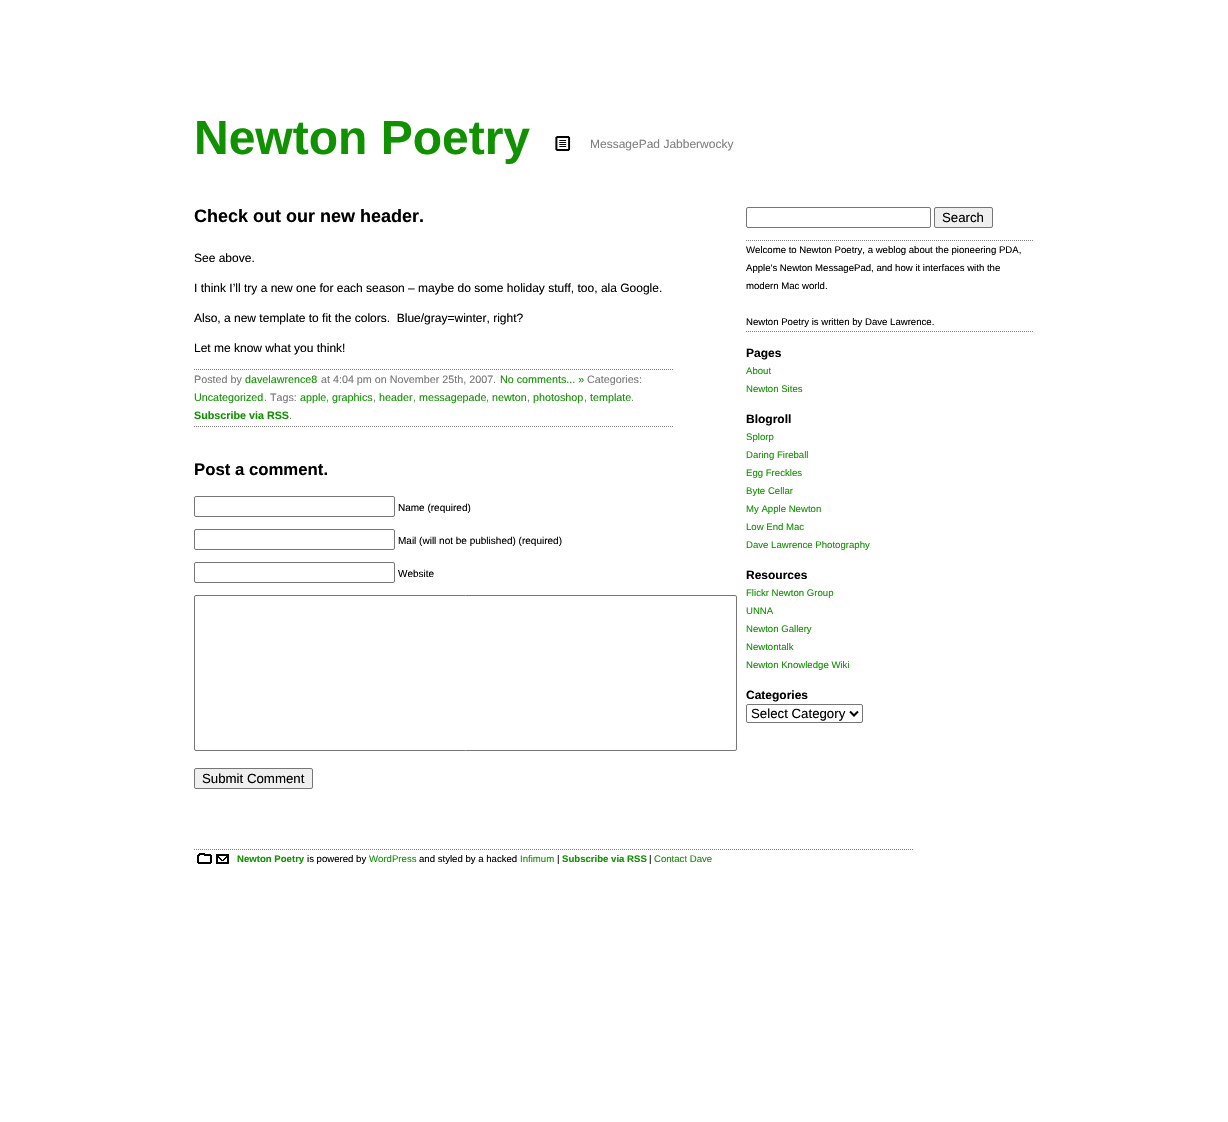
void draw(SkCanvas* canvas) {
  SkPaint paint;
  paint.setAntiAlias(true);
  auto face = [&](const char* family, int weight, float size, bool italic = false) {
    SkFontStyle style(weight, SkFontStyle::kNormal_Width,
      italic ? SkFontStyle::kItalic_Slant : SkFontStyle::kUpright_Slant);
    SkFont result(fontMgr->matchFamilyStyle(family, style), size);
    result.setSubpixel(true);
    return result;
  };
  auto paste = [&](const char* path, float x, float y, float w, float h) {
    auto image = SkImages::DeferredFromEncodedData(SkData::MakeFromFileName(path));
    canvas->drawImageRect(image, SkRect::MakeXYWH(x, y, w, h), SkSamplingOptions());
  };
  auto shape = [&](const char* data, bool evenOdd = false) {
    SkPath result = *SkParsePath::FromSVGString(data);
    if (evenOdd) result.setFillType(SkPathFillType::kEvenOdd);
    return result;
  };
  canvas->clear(0xffffffff);
  paste("img/1.png", 555, 136, 16, 15);
  paint.setStroke(true);
  paint.setStrokeWidth(1);
  paint.setColor(0xff808080);
  paint.setPathEffect(SkDashPathEffect::Make({{1, 1}}, 0));
  canvas->drawPath(shape("M194 369.5H674"), paint);
  paint.setPathEffect(nullptr);
  paint.setPathEffect(SkDashPathEffect::Make({{1, 1}}, 0));
  canvas->drawPath(shape("M194 426.5H674"), paint);
  paint.setPathEffect(nullptr);
  paint.setColor(0xff767676);
  canvas->drawRoundRect(SkRect::MakeXYWH(194.5f, 496.5f, 200, 20), 1.5f, 1.5f, paint);
  canvas->drawRoundRect(SkRect::MakeXYWH(194.5f, 529.5f, 200, 20), 1.5f, 1.5f, paint);
  canvas->drawRoundRect(SkRect::MakeXYWH(194.5f, 562.5f, 200, 20), 1.5f, 1.5f, paint);
  canvas->drawRoundRect(SkRect::MakeXYWH(194.5f, 595.5f, 542, 155), 1.5f, 1.5f, paint);
  paint.setStroke(false);
  paint.setColor(0xffefefef);
  canvas->drawRoundRect(SkRect::MakeXYWH(194.5f, 768.5f, 118, 20), 1.5f, 1.5f, paint);
  paint.setStroke(true);
  paint.setColor(0xff767676);
  canvas->drawRoundRect(SkRect::MakeXYWH(194.5f, 768.5f, 118, 20), 1.5f, 1.5f, paint);
  canvas->drawRoundRect(SkRect::MakeXYWH(746.5f, 207.5f, 184, 20), 1.5f, 1.5f, paint);
  paint.setStroke(false);
  paint.setColor(0xffefefef);
  canvas->drawRoundRect(SkRect::MakeXYWH(934.5f, 207.5f, 58, 20), 1.5f, 1.5f, paint);
  paint.setStroke(true);
  paint.setColor(0xff767676);
  canvas->drawRoundRect(SkRect::MakeXYWH(934.5f, 207.5f, 58, 20), 1.5f, 1.5f, paint);
  paint.setColor(0xff808080);
  paint.setPathEffect(SkDashPathEffect::Make({{1, 1}}, 0));
  canvas->drawPath(shape("M746 240.5H1034"), paint);
  paint.setPathEffect(nullptr);
  paint.setPathEffect(SkDashPathEffect::Make({{1, 1}}, 0));
  canvas->drawPath(shape("M746 331.5H1034"), paint);
  paint.setPathEffect(nullptr);
  paint.setColor(0xff767676);
  canvas->drawRoundRect(SkRect::MakeXYWH(746.5f, 704.5f, 116, 18), 1.5f, 1.5f, paint);
  paint.setStrokeWidth(2);
  paint.setColor(0xff000000);
  canvas->drawPath(shape("M850 711.5L854 715.5L858 711.5"), paint);
  paste("img/2.png", 197, 853, 32, 11);
  paint.setStrokeWidth(1);
  paint.setColor(0xff808080);
  paint.setPathEffect(SkDashPathEffect::Make({{1, 1}}, 0));
  canvas->drawPath(shape("M194 849.5H914"), paint);
  paint.setPathEffect(nullptr);
  auto f0 = face("Liberation Sans", 700, 48);
  paint.setStroke(false);
  paint.setColor(0xff109100);
  canvas->drawString("Newton Poetry", 194, 154, f0, paint);
  auto f1 = face("Liberation Sans", 400, 12);
  paint.setColor(0xff808080);
  canvas->drawString("MessagePad Jabberwocky", 590, 148, f1, paint);
  auto f2 = face("Liberation Sans", 700, 18);
  paint.setColor(0xff000000);
  canvas->drawString("Check out our new header.", 194, 222, f2, paint);
  {
    const struct { const char* s; float x, y; } items[] = {
      {"See above.", 194, 262},
      {"I think I’ll try a new one for each season – maybe do some holiday stuff, too, ala Google.", 194, 292},
      {"Also, a new template to fit the colors.  Blue/gray=winter, right?", 194, 322},
      {"Let me know what you think!", 194, 352},
    };
    for (auto [s, x, y] : items) {
      canvas->drawString(s, x, y, f1, paint);
    }
  }
  auto f3 = face("Liberation Sans", 400, 10.75f);
  paint.setColor(0xff777777);
  canvas->drawString("Posted by", 194, 383, f3, paint);
  paint.setColor(0xff109100);
  canvas->drawString("davelawrence8", 245, 383, f3, paint);
  paint.setColor(0xff777777);
  canvas->drawString("at 4:04 pm on November 25th, 2007.", 321, 383, f3, paint);
  paint.setColor(0xff109100);
  canvas->drawString("No comments... »", 500, 383, f3, paint);
  paint.setColor(0xff777777);
  canvas->drawString("Categories:", 587, 383, f3, paint);
  paint.setColor(0xff109100);
  canvas->drawString("Uncategorized", 194, 401, f3, paint);
  paint.setColor(0xff777777);
  canvas->drawString(". Tags:", 264, 401, f3, paint);
  paint.setColor(0xff109100);
  canvas->drawString("apple", 300, 401, f3, paint);
  paint.setColor(0xff777777);
  canvas->drawString(",", 326, 401, f3, paint);
  paint.setColor(0xff109100);
  canvas->drawString("graphics", 332, 401, f3, paint);
  paint.setColor(0xff777777);
  canvas->drawString(",", 373, 401, f3, paint);
  paint.setColor(0xff109100);
  canvas->drawString("header", 379, 401, f3, paint);
  paint.setColor(0xff777777);
  canvas->drawString(",", 413, 401, f3, paint);
  paint.setColor(0xff109100);
  canvas->drawString("messagepade", 419, 401, f3, paint);
  paint.setColor(0xff777777);
  canvas->drawString(",", 486, 401, f3, paint);
  paint.setColor(0xff109100);
  canvas->drawString("newton", 492, 401, f3, paint);
  paint.setColor(0xff777777);
  canvas->drawString(",", 527, 401, f3, paint);
  paint.setColor(0xff109100);
  canvas->drawString("photoshop", 533, 401, f3, paint);
  paint.setColor(0xff777777);
  canvas->drawString(",", 584, 401, f3, paint);
  paint.setColor(0xff109100);
  canvas->drawString("template", 590, 401, f3, paint);
  paint.setColor(0xff777777);
  canvas->drawString(".", 631, 401, f3, paint);
  auto f4 = face("Liberation Sans", 700, 10.75f);
  paint.setColor(0xff109100);
  canvas->drawString("Subscribe via RSS", 194, 419, f4, paint);
  paint.setColor(0xff777777);
  canvas->drawString(".", 289, 419, f3, paint);
  auto f5 = face("Liberation Sans", 700, 16.75f);
  paint.setColor(0xff000000);
  canvas->drawString("Post a comment.", 194, 475, f5, paint);
  auto f6 = face("Liberation Sans", 400, 10);
  {
    const struct { const char* s; float x, y; } items[] = {
      {"Name (required)", 398, 511},
      {"Mail (will not be published) (required)", 398, 544},
      {"Website", 398, 577},
    };
    for (auto [s, x, y] : items) {
      canvas->drawString(s, x, y, f6, paint);
    }
  }
  auto f7 = face("Liberation Sans", 400, 13.25f);
  canvas->drawString("Submit Comment", 202, 783, f7, paint);
  canvas->drawString("Search", 942, 222, f7, paint);
  auto f8 = face("Liberation Sans", 400, 9.6f);
  {
    const struct { const char* s; float x, y; } items[] = {
      {"Welcome to Newton Poetry, a weblog about the pioneering PDA,", 746, 253},
      {"Apple's Newton MessagePad, and how it interfaces with the", 746, 271},
      {"modern Mac world.", 746, 289},
      {"Newton Poetry is written by Dave Lawrence.", 746, 325},
    };
    for (auto [s, x, y] : items) {
      canvas->drawString(s, x, y, f8, paint);
    }
  }
  auto f9 = face("Liberation Sans", 700, 12);
  canvas->drawString("Pages", 746, 357, f9, paint);
  paint.setColor(0xff109100);
  canvas->drawString("About", 746, 374, f8, paint);
  canvas->drawString("Newton Sites", 746, 392, f8, paint);
  paint.setColor(0xff000000);
  canvas->drawString("Blogroll", 746, 423, f9, paint);
  paint.setColor(0xff109100);
  {
    const struct { const char* s; float x, y; } items[] = {
      {"Splorp", 746, 440},
      {"Daring Fireball", 746, 458},
      {"Egg Freckles", 746, 476},
      {"Byte Cellar", 746, 494},
      {"My Apple Newton", 746, 512},
      {"Low End Mac", 746, 530},
      {"Dave Lawrence Photography", 746, 548},
    };
    for (auto [s, x, y] : items) {
      canvas->drawString(s, x, y, f8, paint);
    }
  }
  paint.setColor(0xff000000);
  canvas->drawString("Resources", 746, 579, f9, paint);
  paint.setColor(0xff109100);
  {
    const struct { const char* s; float x, y; } items[] = {
      {"Flickr Newton Group", 746, 596},
      {"UNNA", 746, 614},
      {"Newton Gallery", 746, 632},
      {"Newtontalk", 746, 650},
      {"Newton Knowledge Wiki", 746, 668},
    };
    for (auto [s, x, y] : items) {
      canvas->drawString(s, x, y, f8, paint);
    }
  }
  paint.setColor(0xff000000);
  canvas->drawString("Categories", 746, 699, f9, paint);
  canvas->drawString("Select Category", 751, 718, f7, paint);
  auto f10 = face("Liberation Sans", 700, 9.6f);
  paint.setColor(0xff109100);
  canvas->drawString("Newton Poetry", 237, 862, f10, paint);
  paint.setColor(0xff000000);
  canvas->drawString("is powered by", 307, 862, f8, paint);
  paint.setColor(0xff109100);
  canvas->drawString("WordPress", 369, 862, f8, paint);
  paint.setColor(0xff000000);
  canvas->drawString("and styled by a hacked", 419, 862, f8, paint);
  paint.setColor(0xff109100);
  canvas->drawString("Infimum", 520, 862, f8, paint);
  paint.setColor(0xff000000);
  canvas->drawString("|", 557, 862, f8, paint);
  paint.setColor(0xff109100);
  canvas->drawString("Subscribe via RSS", 562, 862, f10, paint);
  paint.setColor(0xff000000);
  canvas->drawString("|", 649, 862, f8, paint);
  paint.setColor(0xff109100);
  canvas->drawString("Contact Dave", 654, 862, f8, paint);
}
